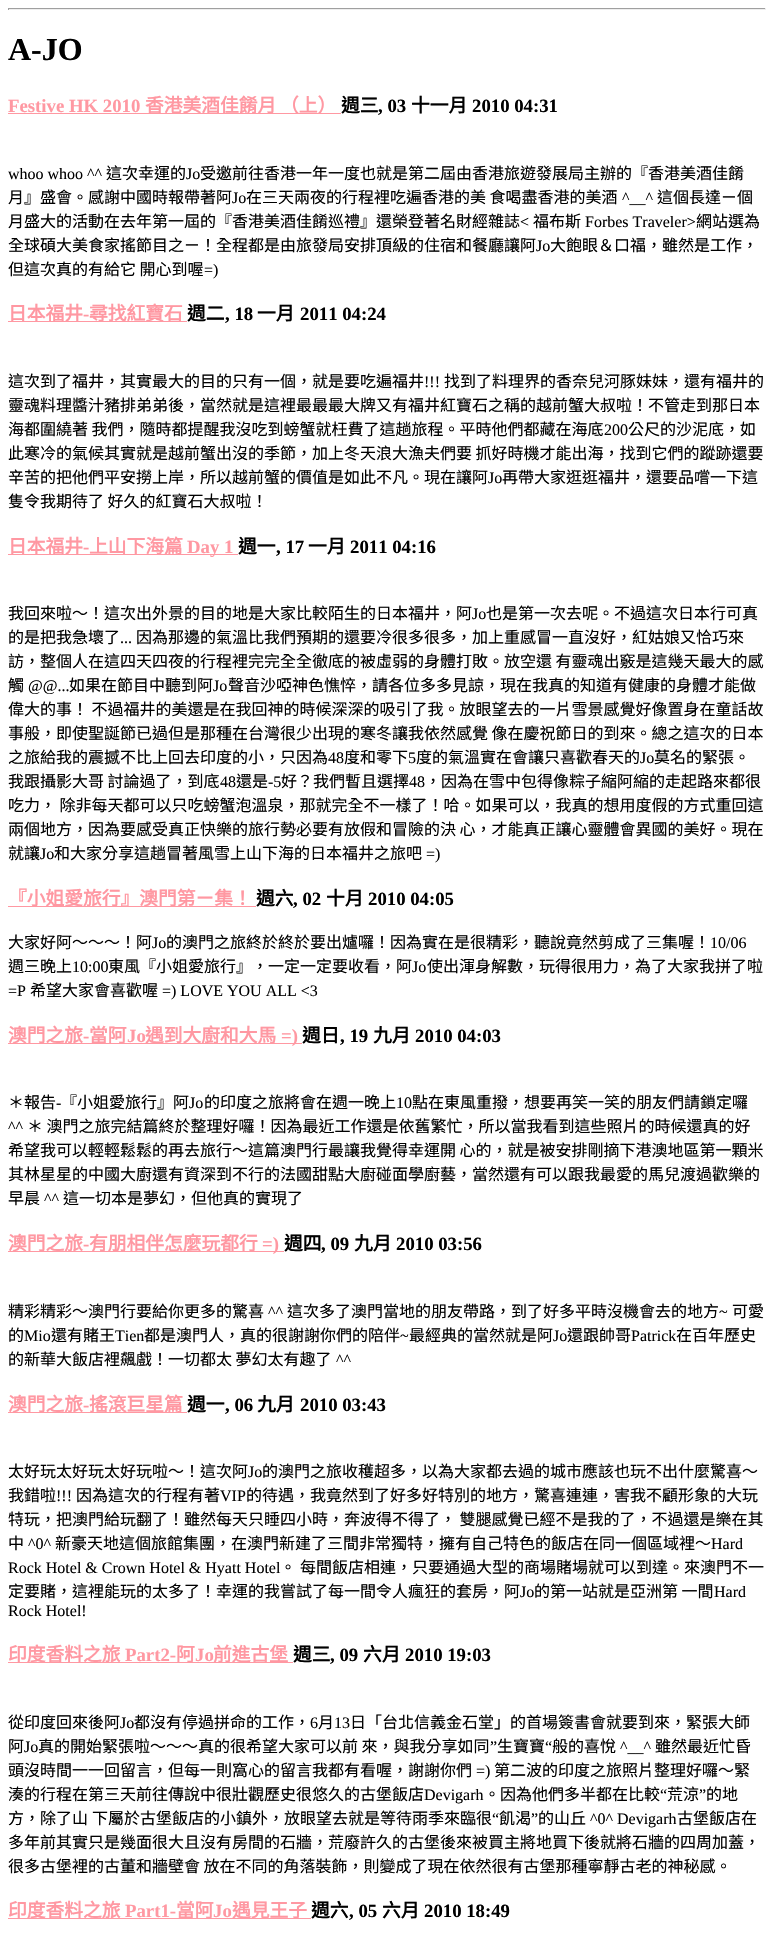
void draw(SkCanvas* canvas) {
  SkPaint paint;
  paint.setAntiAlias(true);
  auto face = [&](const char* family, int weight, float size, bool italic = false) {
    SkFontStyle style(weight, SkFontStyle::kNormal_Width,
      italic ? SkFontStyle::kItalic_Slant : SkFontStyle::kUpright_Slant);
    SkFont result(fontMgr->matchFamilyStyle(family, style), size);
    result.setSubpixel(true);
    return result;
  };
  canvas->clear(0xffffffff);
  {
    const struct { float x, y, w, h; SkColor color; } items[] = {
      {8, 8, 758, 1, 0xff9f9f9f},
      {765, 8, 1, 2, 0xffeeeeee},
      {8, 9, 758, 1, 0xffeeeeee},
      {8, 8, 1, 2, 0xff9f9f9f},
      {8, 113, 333, 1, 0xffff98a2},
      {8, 321, 179, 1, 0xffff98a2},
      {8, 554, 230, 1, 0xffff98a2},
      {8, 906, 248, 1, 0xffff98a2},
      {8, 1043, 294, 1, 0xffff98a2},
      {8, 1251, 276, 1, 0xffff98a2},
      {8, 1412, 179, 1, 0xffff98a2},
      {8, 1662, 285, 1, 0xffff98a2},
      {8, 1918, 303, 1, 0xffff98a2},
    };
    for (auto [x, y, w, h, color] : items) {
      paint.setColor(color);
      canvas->drawRect(SkRect::MakeXYWH(x, y, w, h), paint);
    }
  }
  auto f0 = face("Liberation Serif", 700, 32);
  paint.setColor(0xff000000);
  canvas->drawString("A-JO", 8, 60, f0, paint);
  auto f1 = face("Liberation Serif", 700, 18.75f);
  paint.setColor(0xffff98a2);
  canvas->drawString("Festive HK 2010", 8, 112, f1, paint);
  auto f2 = face("Noto Sans CJK TC", 700, 18.75f);
  canvas->drawString("香港美酒佳餚月", 145, 112, f2, paint);
  canvas->drawString("（上）", 280, 112, f2, paint);
  paint.setColor(0xff000000);
  canvas->drawString("週三", 341, 112, f2, paint);
  canvas->drawString(", 03", 378, 112, f1, paint);
  canvas->drawString("十一月", 411, 112, f2, paint);
  canvas->drawString("2010 04:31", 472, 112, f1, paint);
  auto f3 = face("Liberation Serif", 400, 16);
  canvas->drawString("whoo whoo ^^", 8, 179, f3, paint);
  auto f4 = face("Noto Sans CJK TC", 400, 16);
  canvas->drawString("這次幸運的", 106, 179, f4, paint);
  canvas->drawString("Jo", 186, 179, f3, paint);
  canvas->drawString("受邀前往香港一年一度也就是第二屆由香港旅遊發展局主辦的『香港美酒佳餚", 200, 179, f4, paint);
  canvas->drawString("月』盛會。感謝中國時報帶著阿", 8, 203, f4, paint);
  canvas->drawString("Jo", 232, 203, f3, paint);
  canvas->drawString("在三天兩夜的行程裡吃遍香港的美 食喝盡香港的美酒", 246, 203, f4, paint);
  canvas->drawString("^__^", 622, 203, f3, paint);
  canvas->drawString("這個長達ㄧ個", 657, 203, f4, paint);
  canvas->drawString("月盛大的活動在去年第一屆的『香港美酒佳餚巡禮』還榮登著名財經雜誌", 8, 227, f4, paint);
  canvas->drawString("<", 520, 227, f3, paint);
  canvas->drawString("福布斯", 533, 227, f4, paint);
  canvas->drawString("Forbes Traveler>", 585, 227, f3, paint);
  canvas->drawString("網站選為", 696, 227, f4, paint);
  canvas->drawString("全球碩大美食家搖節目之ㄧ！全程都是由旅發局安排頂級的住宿和餐廳讓阿", 8, 251, f4, paint);
  canvas->drawString("Jo", 536, 251, f3, paint);
  canvas->drawString("大飽眼＆口福，雖然是工作，", 550, 251, f4, paint);
  canvas->drawString("但這次真的有給它 開心到喔", 8, 275, f4, paint);
  canvas->drawString("=)", 204, 275, f3, paint);
  paint.setColor(0xffff98a2);
  canvas->drawString("日本福井", 8, 320, f2, paint);
  canvas->drawString("-", 83, 320, f1, paint);
  canvas->drawString("尋找紅寶石", 89, 320, f2, paint);
  paint.setColor(0xff000000);
  canvas->drawString("週二", 187, 320, f2, paint);
  canvas->drawString(", 18", 225, 320, f1, paint);
  canvas->drawString("一月", 257, 320, f2, paint);
  canvas->drawString("2011 04:24", 300, 320, f1, paint);
  canvas->drawString("這次到了福井，其實最大的目的只有一個，就是要吃遍福井", 8, 387, f4, paint);
  canvas->drawString("!!!", 424, 387, f3, paint);
  {
    const struct { const char* s; float x, y; } items[] = {
      {"找到了料理界的香奈兒河豚妹妹，還有福井的", 444, 387},
      {"靈魂料理醬汁豬排弟弟後，當然就是這裡最最最大牌又有福井紅寶石之稱的越前蟹大叔啦！不管走到那日本", 8, 411},
      {"海都圍繞著 我們，隨時都提醒我沒吃到螃蟹就枉費了這趟旅程。平時他們都藏在海底", 8, 435},
    };
    for (auto [s, x, y] : items) {
      canvas->drawString(s, x, y, f4, paint);
    }
  }
  canvas->drawString("200", 604, 435, f3, paint);
  {
    const struct { const char* s; float x, y; } items[] = {
      {"公尺的沙泥底，如", 628, 435},
      {"此寒冷的氣候其實就是越前蟹出沒的季節，加上冬天浪大漁夫們要 抓好時機才能出海，找到它們的蹤跡還要", 8, 459},
      {"辛苦的把他們平安撈上岸，所以越前蟹的價值是如此不凡。現在讓阿", 8, 483},
    };
    for (auto [s, x, y] : items) {
      canvas->drawString(s, x, y, f4, paint);
    }
  }
  canvas->drawString("Jo", 488, 483, f3, paint);
  canvas->drawString("再帶大家逛逛福井，還要品嚐一下這", 502, 483, f4, paint);
  canvas->drawString("隻令我期待了 好久的紅寶石大叔啦！", 8, 507, f4, paint);
  paint.setColor(0xffff98a2);
  canvas->drawString("日本福井", 8, 553, f2, paint);
  canvas->drawString("-", 83, 553, f1, paint);
  canvas->drawString("上山下海篇", 89, 553, f2, paint);
  canvas->drawString("Day 1", 187, 553, f1, paint);
  paint.setColor(0xff000000);
  canvas->drawString("週一", 238, 553, f2, paint);
  canvas->drawString(", 17", 276, 553, f1, paint);
  canvas->drawString("一月", 308, 553, f2, paint);
  canvas->drawString("2011 04:16", 350, 553, f1, paint);
  canvas->drawString("我回來啦～！這次出外景的目的地是大家比較陌生的日本福井，阿", 8, 619, f4, paint);
  canvas->drawString("Jo", 472, 619, f3, paint);
  canvas->drawString("也是第一次去呢。不過這次日本行可真", 486, 619, f4, paint);
  canvas->drawString("的是把我急壞了", 8, 643, f4, paint);
  canvas->drawString("...", 120, 643, f3, paint);
  {
    const struct { const char* s; float x, y; } items[] = {
      {"因為那邊的氣溫比我們預期的還要冷很多很多，加上重感冒一直沒好，紅姑娘又恰巧來", 136, 643},
      {"訪，整個人在這四天四夜的行程裡完完全全徹底的被虛弱的身體打敗。放空還 有靈魂出竅是這幾天最大的感", 8, 667},
      {"觸", 8, 691},
    };
    for (auto [s, x, y] : items) {
      canvas->drawString(s, x, y, f4, paint);
    }
  }
  canvas->drawString("@@...", 28, 691, f3, paint);
  canvas->drawString("如果在節目中聽到阿", 69, 691, f4, paint);
  canvas->drawString("Jo", 213, 691, f3, paint);
  {
    const struct { const char* s; float x, y; } items[] = {
      {"聲音沙啞神色憔悴，請各位多多見諒，現在我真的知道有健康的身體才能做", 228, 691},
      {"偉大的事！ 不過福井的美還是在我回神的時候深深的吸引了我。放眼望去的一片雪景感覺好像置身在童話故", 8, 715},
      {"事般，即使聖誕節已過但是那種在台灣很少出現的寒冬讓我依然感覺 像在慶祝節日的到來。總之這次的日本", 8, 739},
      {"之旅給我的震撼不比上回去印度的小，只因為", 8, 763},
    };
    for (auto [s, x, y] : items) {
      canvas->drawString(s, x, y, f4, paint);
    }
  }
  canvas->drawString("48", 328, 763, f3, paint);
  canvas->drawString("度和零下", 344, 763, f4, paint);
  canvas->drawString("5", 408, 763, f3, paint);
  canvas->drawString("度的氣溫實在會讓只喜歡春天的", 416, 763, f4, paint);
  canvas->drawString("Jo", 640, 763, f3, paint);
  canvas->drawString("莫名的緊張。", 654, 763, f4, paint);
  canvas->drawString("我跟攝影大哥 討論過了，到底", 8, 787, f4, paint);
  canvas->drawString("48", 220, 787, f3, paint);
  canvas->drawString("還是", 236, 787, f4, paint);
  canvas->drawString("-5", 268, 787, f3, paint);
  canvas->drawString("好？我們暫且選擇", 281, 787, f4, paint);
  canvas->drawString("48", 409, 787, f3, paint);
  {
    const struct { const char* s; float x, y; } items[] = {
      {"，因為在雪中包得像粽子縮阿縮的走起路來都很", 425, 787},
      {"吃力， 除非每天都可以只吃螃蟹泡溫泉，那就完全不一樣了！哈。如果可以，我真的想用度假的方式重回這", 8, 811},
      {"兩個地方，因為要感受真正快樂的旅行勢必要有放假和冒險的決 心，才能真正讓心靈體會異國的美好。現在", 8, 835},
      {"就讓", 8, 859},
    };
    for (auto [s, x, y] : items) {
      canvas->drawString(s, x, y, f4, paint);
    }
  }
  canvas->drawString("Jo", 40, 859, f3, paint);
  canvas->drawString("和大家分享這趟冒著風雪上山下海的日本福井之旅吧", 54, 859, f4, paint);
  canvas->drawString("=)", 426, 859, f3, paint);
  paint.setColor(0xffff98a2);
  canvas->drawString("『小姐愛旅行』澳門第ㄧ集！", 8, 905, f2, paint);
  paint.setColor(0xff000000);
  canvas->drawString("週六", 256, 905, f2, paint);
  canvas->drawString(", 02", 293, 905, f1, paint);
  canvas->drawString("十月", 326, 905, f2, paint);
  canvas->drawString("2010 04:05", 368, 905, f1, paint);
  canvas->drawString("大家好阿～～～！阿", 8, 948, f4, paint);
  canvas->drawString("Jo", 152, 948, f3, paint);
  canvas->drawString("的澳門之旅終於終於要出爐囉！因為實在是很精彩，聽說竟然剪成了三集喔！", 166, 948, f4, paint);
  canvas->drawString("10/06", 710, 948, f3, paint);
  canvas->drawString("週三晚上", 8, 972, f4, paint);
  canvas->drawString("10:00", 72, 972, f3, paint);
  canvas->drawString("東風『小姐愛旅行』，一定一定要收看，阿", 108, 972, f4, paint);
  canvas->drawString("Jo", 412, 972, f3, paint);
  canvas->drawString("使出渾身解數，玩得很用力，為了大家我拼了啦", 427, 972, f4, paint);
  canvas->drawString("=P", 8, 996, f3, paint);
  canvas->drawString("希望大家會喜歡喔", 30, 996, f4, paint);
  canvas->drawString("=) LOVE YOU ALL <3", 162, 996, f3, paint);
  paint.setColor(0xffff98a2);
  canvas->drawString("澳門之旅", 8, 1042, f2, paint);
  canvas->drawString("-", 83, 1042, f1, paint);
  canvas->drawString("當阿", 89, 1042, f2, paint);
  canvas->drawString("Jo", 127, 1042, f1, paint);
  canvas->drawString("遇到大廚和大馬", 145, 1042, f2, paint);
  canvas->drawString("=)", 281, 1042, f1, paint);
  paint.setColor(0xff000000);
  canvas->drawString("週日", 302, 1042, f2, paint);
  canvas->drawString(", 19", 340, 1042, f1, paint);
  canvas->drawString("九月", 373, 1042, f2, paint);
  canvas->drawString("2010 04:03", 415, 1042, f1, paint);
  canvas->drawString("＊報告", 8, 1108, f4, paint);
  canvas->drawString("-", 56, 1108, f3, paint);
  canvas->drawString("『小姐愛旅行』阿", 61, 1108, f4, paint);
  canvas->drawString("Jo", 189, 1108, f3, paint);
  canvas->drawString("的印度之旅將會在週一晚上", 204, 1108, f4, paint);
  canvas->drawString("10", 396, 1108, f3, paint);
  canvas->drawString("點在東風重撥，想要再笑一笑的朋友們請鎖定囉", 412, 1108, f4, paint);
  canvas->drawString("^^", 8, 1132, f3, paint);
  {
    const struct { const char* s; float x, y; } items[] = {
      {"＊ 澳門之旅完結篇終於整理好囉！因為最近工作還是依舊繁忙，所以當我看到這些照片的時候還真的好", 27, 1132},
      {"希望我可以輕輕鬆鬆的再去旅行～這篇澳門行最讓我覺得幸運開 心的，就是被安排剛摘下港澳地區第一顆米", 8, 1156},
      {"其林星星的中國大廚還有資深到不行的法國甜點大廚碰面學廚藝，當然還有可以跟我最愛的馬兒渡過歡樂的", 8, 1180},
      {"早晨", 8, 1204},
    };
    for (auto [s, x, y] : items) {
      canvas->drawString(s, x, y, f4, paint);
    }
  }
  canvas->drawString("^^", 44, 1204, f3, paint);
  canvas->drawString("這一切本是夢幻，但他真的實現了", 63, 1204, f4, paint);
  paint.setColor(0xffff98a2);
  canvas->drawString("澳門之旅", 8, 1250, f2, paint);
  canvas->drawString("-", 83, 1250, f1, paint);
  canvas->drawString("有朋相伴怎麼玩都行", 89, 1250, f2, paint);
  canvas->drawString("=)", 262, 1250, f1, paint);
  paint.setColor(0xff000000);
  canvas->drawString("週四", 284, 1250, f2, paint);
  canvas->drawString(", 09", 321, 1250, f1, paint);
  canvas->drawString("九月", 354, 1250, f2, paint);
  canvas->drawString("2010 03:56", 396, 1250, f1, paint);
  canvas->drawString("精彩精彩～澳門行要給你更多的驚喜", 8, 1317, f4, paint);
  canvas->drawString("^^", 268, 1317, f3, paint);
  canvas->drawString("這次多了澳門當地的朋友帶路，到了好多平時沒機會去的地方", 287, 1317, f4, paint);
  canvas->drawString("~", 719, 1317, f3, paint);
  canvas->drawString("可愛", 732, 1317, f4, paint);
  canvas->drawString("的", 8, 1341, f4, paint);
  canvas->drawString("Mio", 24, 1341, f3, paint);
  canvas->drawString("還有賭王", 51, 1341, f4, paint);
  canvas->drawString("Tien", 115, 1341, f3, paint);
  canvas->drawString("都是澳門人，真的很謝謝你們的陪伴", 144, 1341, f4, paint);
  canvas->drawString("~", 400, 1341, f3, paint);
  canvas->drawString("最經典的當然就是阿", 409, 1341, f4, paint);
  canvas->drawString("Jo", 553, 1341, f3, paint);
  canvas->drawString("還跟帥哥", 567, 1341, f4, paint);
  canvas->drawString("Patrick", 631, 1341, f3, paint);
  canvas->drawString("在百年歷史", 676, 1341, f4, paint);
  canvas->drawString("的新華大飯店裡飆戲！一切都太 夢幻太有趣了", 8, 1365, f4, paint);
  canvas->drawString("^^", 336, 1365, f3, paint);
  paint.setColor(0xffff98a2);
  canvas->drawString("澳門之旅", 8, 1411, f2, paint);
  canvas->drawString("-", 83, 1411, f1, paint);
  canvas->drawString("搖滾巨星篇", 89, 1411, f2, paint);
  paint.setColor(0xff000000);
  canvas->drawString("週一", 187, 1411, f2, paint);
  canvas->drawString(", 06", 225, 1411, f1, paint);
  canvas->drawString("九月", 257, 1411, f2, paint);
  canvas->drawString("2010 03:43", 300, 1411, f1, paint);
  canvas->drawString("太好玩太好玩太好玩啦～！這次阿", 8, 1477, f4, paint);
  canvas->drawString("Jo", 248, 1477, f3, paint);
  canvas->drawString("的澳門之旅收穫超多，以為大家都去過的城市應該也玩不出什麼驚喜～", 262, 1477, f4, paint);
  canvas->drawString("我錯啦", 8, 1501, f4, paint);
  canvas->drawString("!!!", 56, 1501, f3, paint);
  canvas->drawString("因為這次的行程有著", 76, 1501, f4, paint);
  canvas->drawString("VIP", 220, 1501, f3, paint);
  {
    const struct { const char* s; float x, y; } items[] = {
      {"的待遇，我竟然到了好多好特別的地方，驚喜連連，害我不顧形象的大玩", 246, 1501},
      {"特玩，把澳門給玩翻了！雖然每天只睡四小時，奔波得不得了， 雙腿感覺已經不是我的了，不過還是樂在其", 8, 1525},
      {"中", 8, 1549},
    };
    for (auto [s, x, y] : items) {
      canvas->drawString(s, x, y, f4, paint);
    }
  }
  canvas->drawString("^0^", 28, 1549, f3, paint);
  canvas->drawString("新豪天地這個旅館集團，在澳門新建了三間非常獨特，擁有自己特色的飯店在同一個區域裡～", 55, 1549, f4, paint);
  canvas->drawString("Hard", 711, 1549, f3, paint);
  canvas->drawString("Rock Hotel & Crown Hotel & Hyatt Hotel", 8, 1573, f3, paint);
  {
    const struct { const char* s; float x, y; } items[] = {
      {"。", 280, 1573},
      {"每間飯店相連，只要通過大型的商場賭場就可以到達。來澳門不一", 300, 1573},
      {"定要賭，這裡能玩的太多了！幸運的我嘗試了每一間令人瘋狂的套房，阿", 8, 1597},
    };
    for (auto [s, x, y] : items) {
      canvas->drawString(s, x, y, f4, paint);
    }
  }
  canvas->drawString("Jo", 520, 1597, f3, paint);
  canvas->drawString("的第一站就是亞洲第 一間", 534, 1597, f4, paint);
  canvas->drawString("Hard", 714, 1597, f3, paint);
  canvas->drawString("Rock Hotel!", 8, 1616, f3, paint);
  paint.setColor(0xffff98a2);
  canvas->drawString("印度香料之旅", 8, 1661, f2, paint);
  canvas->drawString("Part2-", 125, 1661, f1, paint);
  canvas->drawString("阿", 176, 1661, f2, paint);
  canvas->drawString("Jo", 195, 1661, f1, paint);
  canvas->drawString("前進古堡", 213, 1661, f2, paint);
  paint.setColor(0xff000000);
  canvas->drawString("週三", 293, 1661, f2, paint);
  canvas->drawString(", 09", 330, 1661, f1, paint);
  canvas->drawString("六月", 363, 1661, f2, paint);
  canvas->drawString("2010 19:03", 405, 1661, f1, paint);
  canvas->drawString("從印度回來後阿", 8, 1728, f4, paint);
  canvas->drawString("Jo", 120, 1728, f3, paint);
  canvas->drawString("都沒有停過拼命的工作，", 134, 1728, f4, paint);
  canvas->drawString("6", 310, 1728, f3, paint);
  canvas->drawString("月", 318, 1728, f4, paint);
  canvas->drawString("13", 334, 1728, f3, paint);
  canvas->drawString("日「台北信義金石堂」的首場簽書會就要到來，緊張大師", 350, 1728, f4, paint);
  canvas->drawString("阿", 8, 1752, f4, paint);
  canvas->drawString("Jo", 24, 1752, f3, paint);
  canvas->drawString("真的開始緊張啦～～～真的很希望大家可以前 來，與我分享如同", 38, 1752, f4, paint);
  canvas->drawString("”", 490, 1752, f3, paint);
  canvas->drawString("生寶寶", 497, 1752, f4, paint);
  canvas->drawString("“", 545, 1752, f3, paint);
  canvas->drawString("般的喜悅", 552, 1752, f4, paint);
  canvas->drawString("^__^", 620, 1752, f3, paint);
  canvas->drawString("雖然最近忙昏", 655, 1752, f4, paint);
  canvas->drawString("頭沒時間一一回留言，但每一則窩心的留言我都有看喔，謝謝你們", 8, 1776, f4, paint);
  canvas->drawString("=)", 476, 1776, f3, paint);
  canvas->drawString("第二波的印度之旅照片整理好囉～緊", 494, 1776, f4, paint);
  canvas->drawString("湊的行程在第三天前往傳說中很壯觀歷史很悠久的古堡飯店", 8, 1800, f4, paint);
  canvas->drawString("Devigarh", 424, 1800, f3, paint);
  canvas->drawString("。因為他們多半都在比較", 484, 1800, f4, paint);
  canvas->drawString("“", 660, 1800, f3, paint);
  canvas->drawString("荒涼", 667, 1800, f4, paint);
  canvas->drawString("”", 699, 1800, f3, paint);
  {
    const struct { const char* s; float x, y; } items[] = {
      {"的地", 706, 1800},
      {"方，除了山", 8, 1824},
      {"下屬於古堡飯店的小鎮外，放眼望去就是等待雨季來臨很", 92, 1824},
    };
    for (auto [s, x, y] : items) {
      canvas->drawString(s, x, y, f4, paint);
    }
  }
  canvas->drawString("“", 492, 1824, f3, paint);
  canvas->drawString("飢渴", 499, 1824, f4, paint);
  canvas->drawString("”", 531, 1824, f3, paint);
  canvas->drawString("的山丘", 538, 1824, f4, paint);
  canvas->drawString("^0^ Devigarh", 590, 1824, f3, paint);
  {
    const struct { const char* s; float x, y; } items[] = {
      {"古堡飯店在", 677, 1824},
      {"多年前其實只是幾面很大且沒有房間的石牆，荒廢許久的古堡後來被買主將地買下後就將石牆的四周加蓋，", 8, 1848},
      {"很多古堡裡的古董和牆壁會 放在不同的角落裝飾，則變成了現在依然很有古堡那種寧靜古老的神秘感。", 8, 1872},
    };
    for (auto [s, x, y] : items) {
      canvas->drawString(s, x, y, f4, paint);
    }
  }
  paint.setColor(0xffff98a2);
  canvas->drawString("印度香料之旅", 8, 1917, f2, paint);
  canvas->drawString("Part1-", 125, 1917, f1, paint);
  canvas->drawString("當阿", 176, 1917, f2, paint);
  canvas->drawString("Jo", 213, 1917, f1, paint);
  canvas->drawString("遇見王子", 232, 1917, f2, paint);
  paint.setColor(0xff000000);
  canvas->drawString("週六", 311, 1917, f2, paint);
  canvas->drawString(", 05", 349, 1917, f1, paint);
  canvas->drawString("六月", 382, 1917, f2, paint);
  canvas->drawString("2010 18:49", 424, 1917, f1, paint);
}
